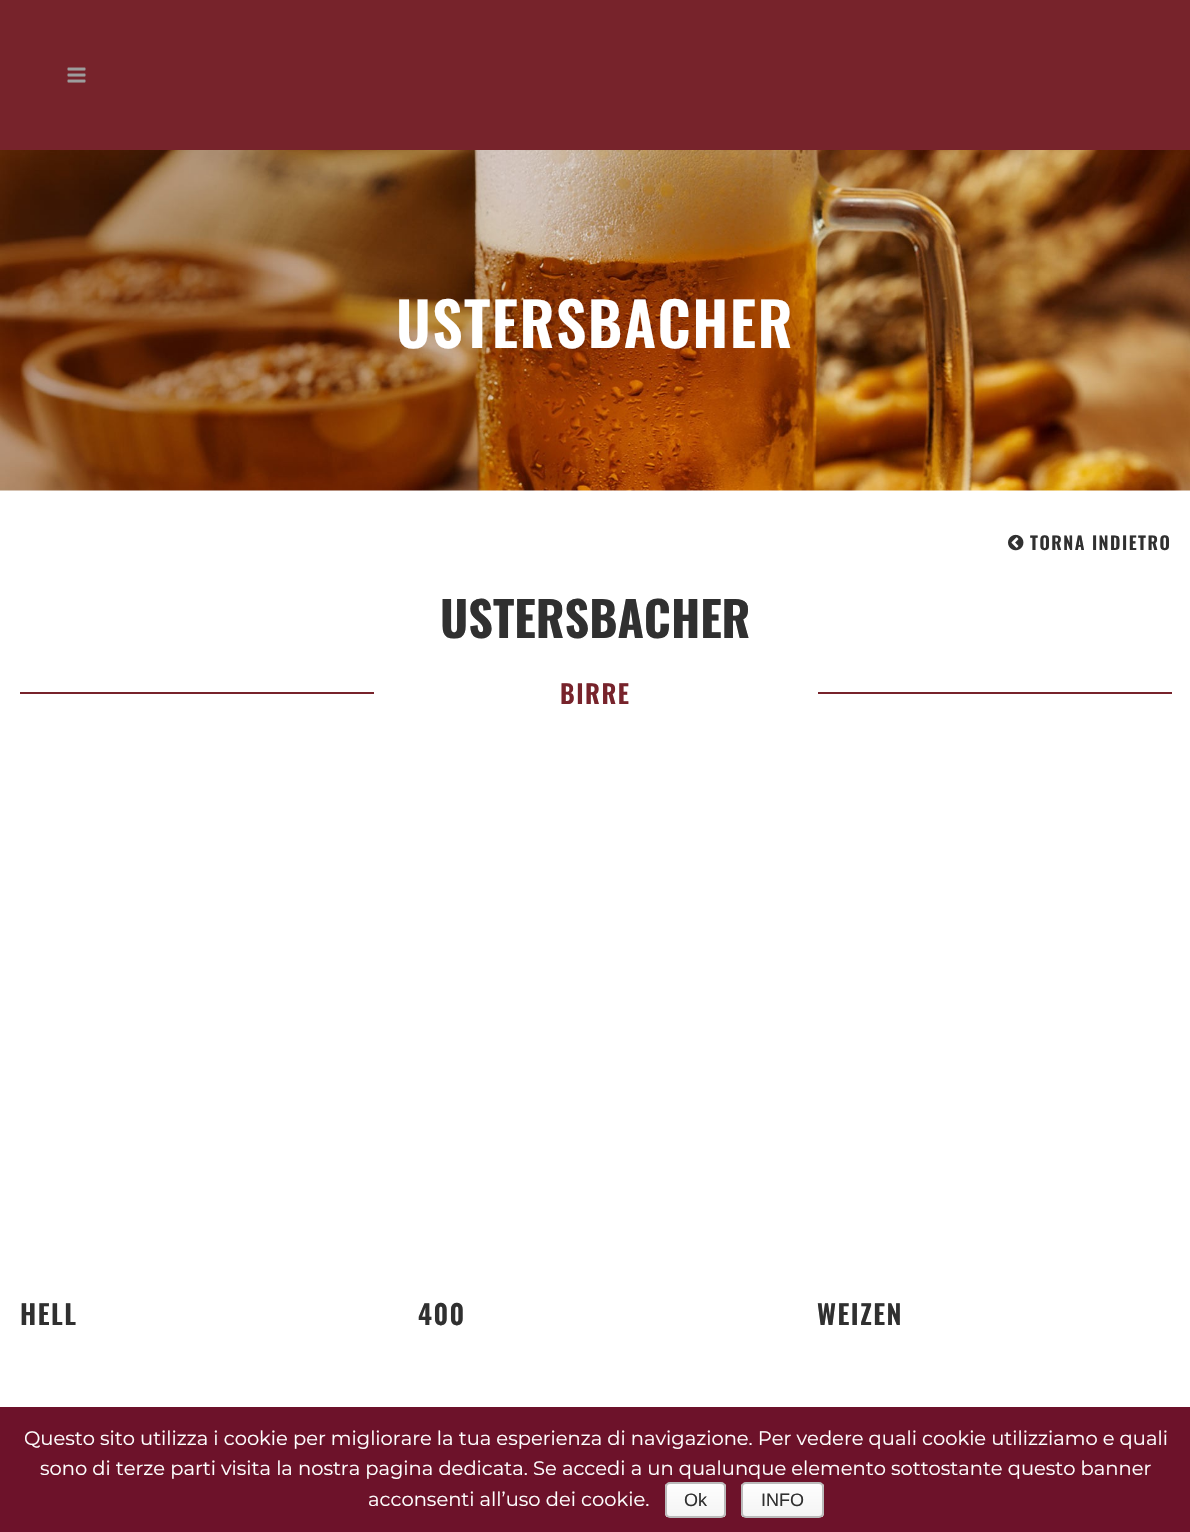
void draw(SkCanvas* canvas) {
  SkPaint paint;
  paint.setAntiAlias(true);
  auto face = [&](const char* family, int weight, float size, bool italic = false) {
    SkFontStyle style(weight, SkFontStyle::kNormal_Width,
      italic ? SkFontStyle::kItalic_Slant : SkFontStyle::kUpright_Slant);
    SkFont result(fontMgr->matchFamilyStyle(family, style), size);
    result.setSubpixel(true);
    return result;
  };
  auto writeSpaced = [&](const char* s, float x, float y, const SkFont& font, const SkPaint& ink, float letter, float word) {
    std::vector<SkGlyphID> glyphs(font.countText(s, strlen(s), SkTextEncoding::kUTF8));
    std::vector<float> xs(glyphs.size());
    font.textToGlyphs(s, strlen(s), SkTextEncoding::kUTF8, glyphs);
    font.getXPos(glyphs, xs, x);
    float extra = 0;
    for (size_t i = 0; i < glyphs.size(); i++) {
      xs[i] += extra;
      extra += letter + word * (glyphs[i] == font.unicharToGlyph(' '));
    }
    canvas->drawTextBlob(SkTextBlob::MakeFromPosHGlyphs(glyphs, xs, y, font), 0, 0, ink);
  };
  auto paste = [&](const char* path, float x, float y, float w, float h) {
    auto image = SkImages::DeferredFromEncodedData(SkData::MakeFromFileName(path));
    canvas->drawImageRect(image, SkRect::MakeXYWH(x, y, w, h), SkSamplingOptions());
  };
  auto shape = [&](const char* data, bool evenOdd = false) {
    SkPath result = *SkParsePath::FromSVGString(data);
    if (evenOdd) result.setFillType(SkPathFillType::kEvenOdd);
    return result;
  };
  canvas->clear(0xffffffff);
  paint.setColor(0xff77232b);
  canvas->drawRect(SkRect::MakeXYWH(0, 0, 1190, 150), paint);
  paste("img/1.png", 67, 67, 19, 16);
  paste("img/2.png", 0, 150, 1190, 341);
  paste("img/3.png", 1008, 534, 16, 17);
  {
    const struct { float x, y, w, h; SkColor color; } items[] = {
      {20, 692, 354, 2, 0xff77232b},
      {818, 692, 354, 2, 0xff77232b},
      {0, 1407, 1190, 125, 0xff6d122a},
    };
    for (auto [x, y, w, h, color] : items) {
      paint.setColor(color);
      canvas->drawRect(SkRect::MakeXYWH(x, y, w, h), paint);
    }
  }
  canvas->save();
  canvas->clipPath(shape("M670 1482H721C724 1482 726 1484 726 1487V1513C726 1516 724 1518 721 1518H670C667 1518 665 1516 665 1513V1487C665 1484 667 1482 670 1482Z"), true);
  {
    const SkColor colors[] = {0xfffefefe, 0xfff4f4f4};
    const float stops[] = {0, 1};
    const SkPoint ends[] = {{695, 1484}, {695, 1517}};
    paint.setShader(SkGradientShader::MakeLinear(ends, colors, stops, 2, SkTileMode::kClamp));
    paint.setAlpha(255);
  }
  canvas->drawRect(SkRect::MakeXYWH(665, 1484, 61, 33), paint);
  canvas->restore();
  paint.setStroke(true);
  paint.setStrokeWidth(2);
  paint.setShader(nullptr);
  paint.setColor(0xffbbbbbb);
  canvas->drawRoundRect(SkRect::MakeXYWH(666, 1483, 59, 34), 4, 4, paint);
  canvas->save();
  canvas->clipPath(shape("M746 1482H819C822 1482 824 1484 824 1487V1513C824 1516 822 1518 819 1518H746C743 1518 741 1516 741 1513V1487C741 1484 743 1482 746 1482Z"), true);
  paint.setStroke(false);
  {
    const SkColor colors[] = {0xfffefefe, 0xfff4f4f4};
    const float stops[] = {0, 1};
    const SkPoint ends[] = {{782, 1484}, {782, 1517}};
    paint.setShader(SkGradientShader::MakeLinear(ends, colors, stops, 2, SkTileMode::kClamp));
    paint.setAlpha(255);
  }
  canvas->drawRect(SkRect::MakeXYWH(741, 1484, 83, 33), paint);
  canvas->restore();
  paint.setStroke(true);
  paint.setShader(nullptr);
  paint.setColor(0xffbbbbbb);
  canvas->drawRoundRect(SkRect::MakeXYWH(742, 1483, 81, 34), 4, 4, paint);
  auto f0 = face("Oswald", 600, 60);
  paint.setStroke(false);
  paint.setColor(0xffffffff);
  writeSpaced("USTERSBACHER", 396, 348, f0, paint, 1.5f, 0);
  auto f1 = face("Oswald", 600, 18);
  paint.setColor(0xff303030);
  writeSpaced("TORNA INDIETRO", 1030, 550, f1, paint, 1.5f, 0);
  auto f2 = face("Oswald", 700, 48);
  canvas->drawString("USTERSBACHER", 440, 638, f2, paint);
  auto f3 = face("Oswald", 600, 25.5f);
  paint.setColor(0xff77232b);
  writeSpaced("BIRRE", 560, 704, f3, paint, 1.5f, 0);
  auto f4 = face("Oswald", 600, 27);
  paint.setColor(0xff303030);
  {
    const struct { const char* s; float x, y; } items[] = {
      {"HELL", 20, 1325},
      {"400", 418, 1325},
      {"WEIZEN", 817, 1325},
    };
    for (auto [s, x, y] : items) {
      writeSpaced(s, x, y, f4, paint, 1.5f, 0);
    }
  }
  auto f5 = face("Montserrat", 400, 19.5f);
  paint.setColor(0xffffffff);
  {
    const struct { const char* s; float x, y; } items[] = {
      {"Questo sito utilizza i cookie per migliorare la tua esperienza di navigazione. Per vedere quali cookie utilizziamo e quali", 24, 1445},
      {"sono di terze parti visita la nostra pagina dedicata. Se accedi a un qualunque elemento sottostante questo banner", 40, 1475},
      {"acconsenti all’uso dei cookie.", 368, 1506},
    };
    for (auto [s, x, y] : items) {
      canvas->drawString(s, x, y, f5, paint);
    }
  }
  auto f6 = face("Liberation Sans", 400, 18);
  paint.setColor(0xff303030);
  canvas->drawString("Ok", 684, 1506, f6, paint);
  canvas->drawString("INFO", 761, 1506, f6, paint);
}
